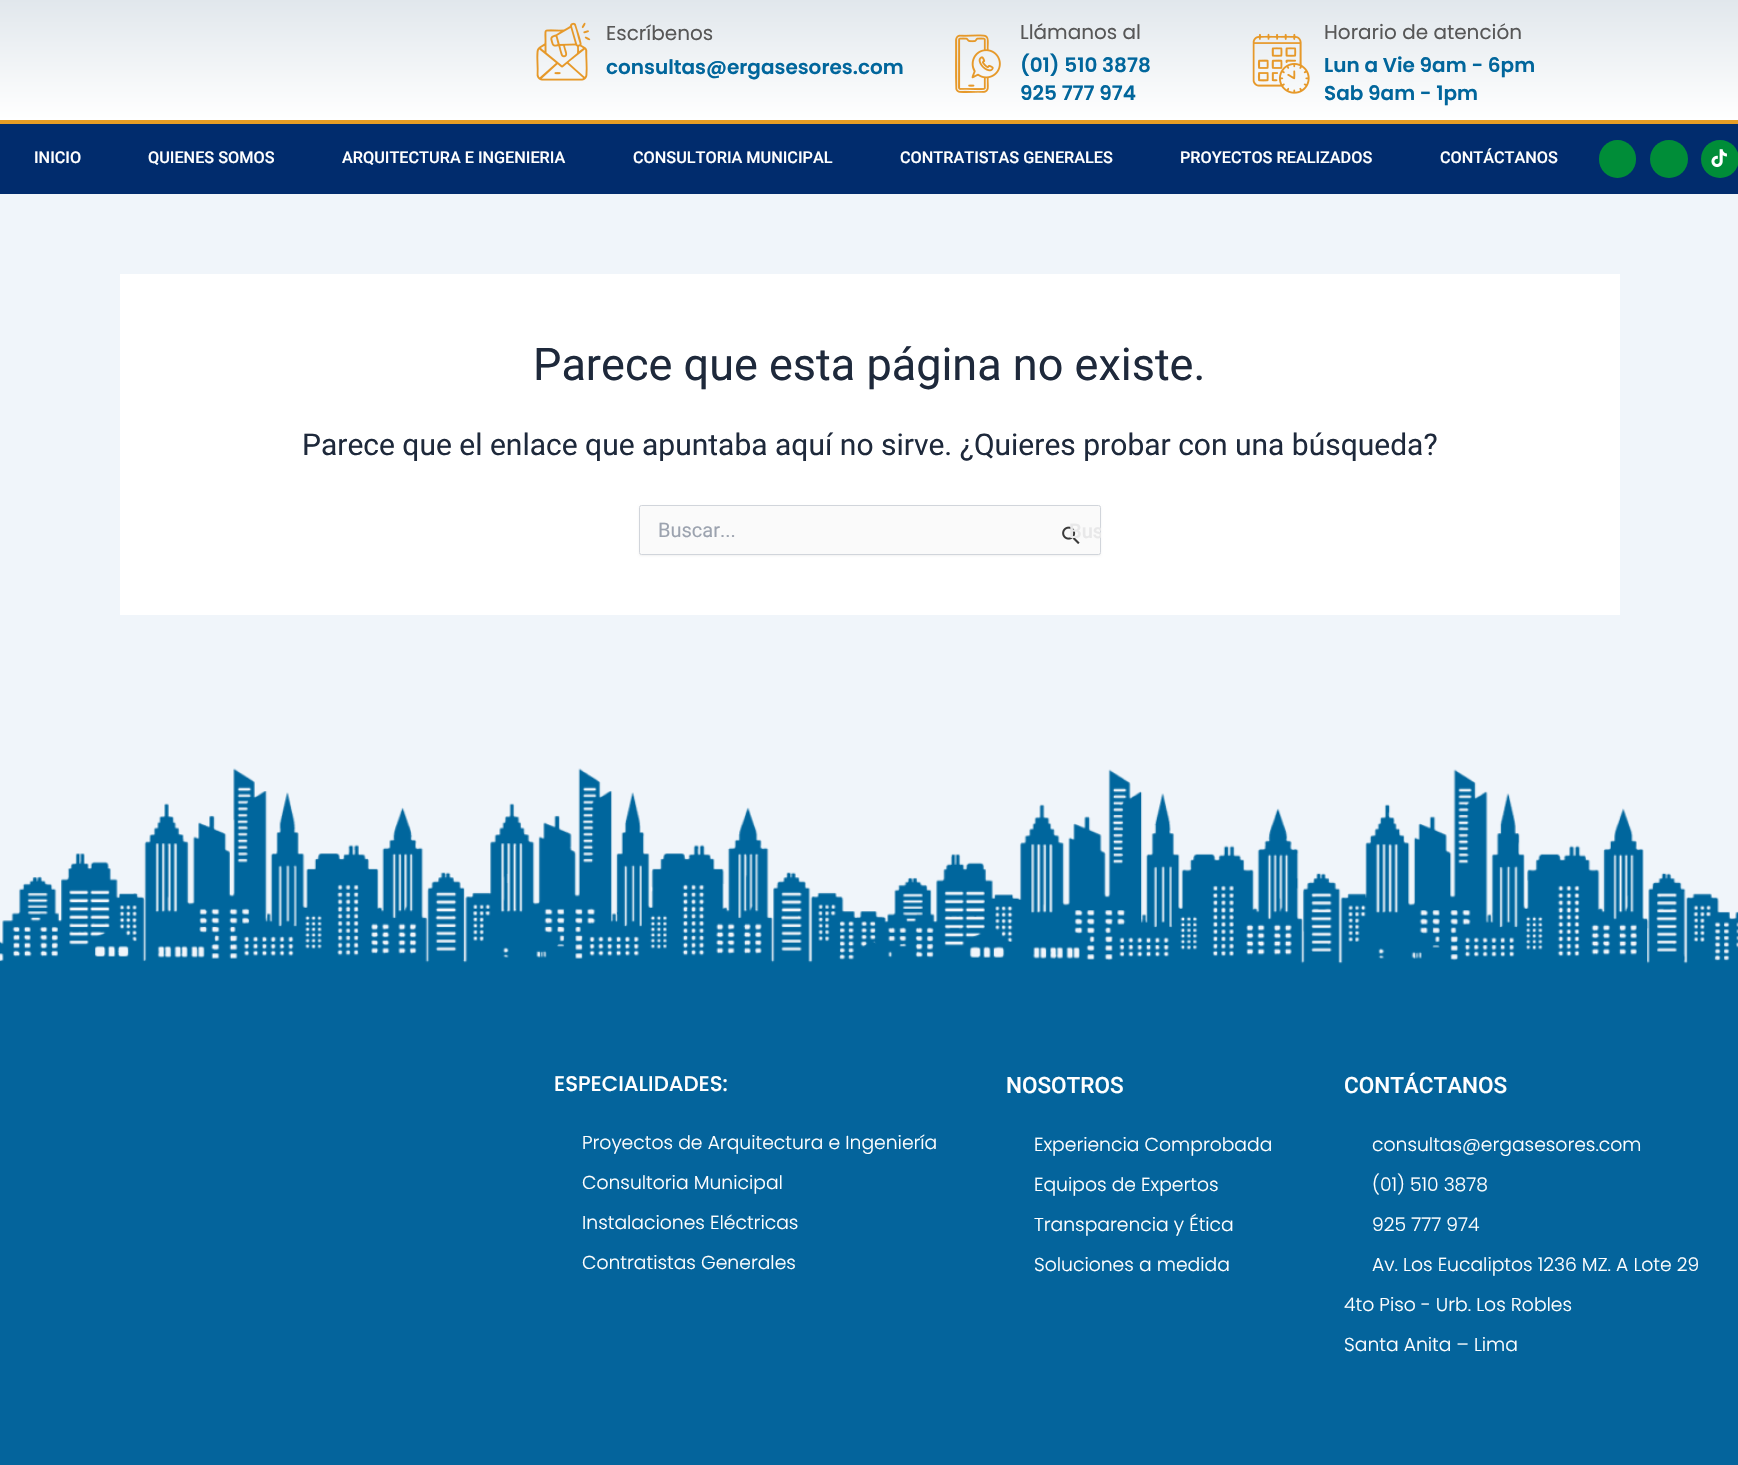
void draw(SkCanvas* canvas) {
  SkPaint paint;
  paint.setAntiAlias(true);
  auto face = [&](const char* family, int weight, float size, bool italic = false) {
    SkFontStyle style(weight, SkFontStyle::kNormal_Width,
      italic ? SkFontStyle::kItalic_Slant : SkFontStyle::kUpright_Slant);
    SkFont result(fontMgr->matchFamilyStyle(family, style), size);
    result.setSubpixel(true);
    return result;
  };
  auto paste = [&](const char* path, float x, float y, float w, float h) {
    auto image = SkImages::DeferredFromEncodedData(SkData::MakeFromFileName(path));
    canvas->drawImageRect(image, SkRect::MakeXYWH(x, y, w, h), SkSamplingOptions());
  };
  auto shape = [&](const char* data, bool evenOdd = false) {
    SkPath result = *SkParsePath::FromSVGString(data);
    if (evenOdd) result.setFillType(SkPathFillType::kEvenOdd);
    return result;
  };
  canvas->clear(0xfff0f5fa);
  {
    const SkColor colors[] = {0xffe1e7ec, 0xffffffff};
    const float stops[] = {0, 1};
    const SkPoint ends[] = {{869, 0}, {869, 120}};
    paint.setShader(SkGradientShader::MakeLinear(ends, colors, stops, 2, SkTileMode::kClamp));
    paint.setAlpha(255);
  }
  canvas->drawRect(SkRect::MakeXYWH(0, 0, 1738, 120), paint);
  paste("img/1.png", 536, 22, 55, 59);
  paste("img/2.png", 955, 34, 46, 59);
  paste("img/3.png", 1252, 33, 58, 61);
  paint.setShader(nullptr);
  paint.setColor(0xff012c6d);
  canvas->drawRect(SkRect::MakeXYWH(0, 124, 1738, 70), paint);
  paint.setColor(0xffe79e25);
  canvas->drawRect(SkRect::MakeXYWH(0, 120, 1738, 4), paint);
  paint.setColor(0xff008d38);
  canvas->drawRoundRect(SkRect::MakeXYWH(1599, 140, 37, 38), 18.5f, 18.5f, paint);
  canvas->drawCircle(1669, 159, 19, paint);
  canvas->drawCircle(1720, 159, 19, paint);
  paste("img/4.png", 1711, 149, 16, 19);
  paint.setColor(0xffffffff);
  canvas->drawRect(SkRect::MakeXYWH(120, 274, 1500, 341), paint);
  paint.setColor(0x0d000000);
  paint.setMaskFilter(SkMaskFilter::MakeBlur(kNormal_SkBlurStyle, 1));
  canvas->drawRoundRect(SkRect::MakeXYWH(639, 506, 462, 50), 2.5f, 2.5f, paint);
  paint.setMaskFilter(nullptr);
  paint.setColor(0xfffafafa);
  canvas->drawRoundRect(SkRect::MakeXYWH(639.5f, 505.5f, 461, 49), 2, 2, paint);
  paint.setStroke(true);
  paint.setStrokeWidth(1);
  paint.setColor(0xffd1d5db);
  canvas->drawRoundRect(SkRect::MakeXYWH(639.5f, 505.5f, 461, 49), 2, 2, paint);
  paste("img/5.png", 1062, 526, 18, 18);
  paste("img/6.png", 0, 768, 1738, 202);
  paint.setStroke(false);
  paint.setColor(0xff04649c);
  canvas->drawRect(SkRect::MakeXYWH(0, 970, 1738, 495), paint);
  auto f0 = face("Poppins", 400, 20);
  paint.setColor(0xff575757);
  canvas->drawString("Escríbenos", 606, 40, f0, paint);
  auto f1 = face("Poppins", 600, 20);
  paint.setColor(0xff01669c);
  canvas->drawString("consultas@ergasesores.com", 606, 74, f1, paint);
  paint.setColor(0xff575757);
  canvas->drawString("Llámanos al", 1020, 39, f0, paint);
  paint.setColor(0xff01669c);
  canvas->drawString("(01) 510 3878", 1020, 72, f1, paint);
  canvas->drawString("925 777 974", 1020, 100, f1, paint);
  paint.setColor(0xff575757);
  canvas->drawString("Horario de atención", 1324, 39, f0, paint);
  paint.setColor(0xff01669c);
  canvas->drawString("Lun a Vie 9am - 6pm", 1324, 72, f1, paint);
  canvas->drawString("Sab 9am - 1pm", 1324, 100, f1, paint);
  auto f2 = face("Roboto", 500, 16.25f);
  paint.setColor(0xffffffff);
  {
    const struct { const char* s; float x, y; } items[] = {
      {"INICIO", 34, 163},
      {"QUIENES SOMOS", 148, 163},
      {"ARQUITECTURA E INGENIERIA", 342, 163},
      {"CONSULTORIA MUNICIPAL", 633, 163},
      {"CONTRATISTAS GENERALES", 900, 163},
      {"PROYECTOS REALIZADOS", 1180, 163},
      {"CONTÁCTANOS", 1440, 163},
    };
    for (auto [s, x, y] : items) {
      canvas->drawString(s, x, y, f2, paint);
    }
  }
  auto f3 = face("Roboto", 400, 45);
  paint.setColor(0xff1e293b);
  canvas->drawString("Parece que esta página no existe.", 533, 380, f3, paint);
  auto f4 = face("Roboto", 400, 30);
  canvas->drawString("Parece que el enlace que apuntaba aquí no sirve. ¿Quieres probar con una búsqueda?", 302, 455, f4, paint);
  auto f5 = face("Roboto", 400, 20);
  paint.setColor(0xff9ca3af);
  canvas->drawString("Buscar...", 658, 537, f5, paint);
  canvas->save();
  canvas->clipPath(shape("M1047.5 505H1098.5C1100 505 1101 506 1101 507.5V555.5C1101 557 1100 558 1098.5 558H1047.5C1046 558 1045 557 1045 555.5V507.5C1045 506 1046 505 1047.5 505Z"), true);
  auto f6 = face("Roboto", 500, 20);
  paint.setColor(0xffe8e8e9);
  canvas->drawString("Bus", 1069, 538, f6, paint);
  canvas->restore();
  auto f7 = face("Poppins", 500, 21.25f);
  paint.setColor(0xffffffff);
  canvas->drawString("ESPECIALIDADES:", 554, 1091, f7, paint);
  auto f8 = face("Poppins", 300, 18.75f);
  {
    const struct { const char* s; float x, y; } items[] = {
      {"Proyectos de Arquitectura e Ingeniería", 582, 1149},
      {"Consultoria Municipal", 582, 1189},
      {"Instalaciones Eléctricas", 582, 1229},
      {"Contratistas Generales", 582, 1269},
    };
    for (auto [s, x, y] : items) {
      canvas->drawString(s, x, y, f8, paint);
    }
  }
  auto f9 = face("Roboto", 500, 22.5f);
  canvas->drawString("NOSOTROS", 1006, 1093, f9, paint);
  {
    const struct { const char* s; float x, y; } items[] = {
      {"Experiencia Comprobada", 1034, 1151},
      {"Equipos de Expertos", 1034, 1191},
      {"Transparencia y Ética", 1034, 1231},
      {"Soluciones a medida", 1034, 1271},
    };
    for (auto [s, x, y] : items) {
      canvas->drawString(s, x, y, f8, paint);
    }
  }
  canvas->drawString("CONTÁCTANOS", 1344, 1093, f9, paint);
  {
    const struct { const char* s; float x, y; } items[] = {
      {"consultas@ergasesores.com", 1372, 1151},
      {"(01) 510 3878", 1372, 1191},
      {"925 777 974", 1372, 1231},
      {"Av. Los Eucaliptos 1236 MZ. A Lote 29", 1372, 1271},
      {"4to Piso - Urb. Los Robles", 1344, 1311},
      {"Santa Anita – Lima", 1344, 1351},
    };
    for (auto [s, x, y] : items) {
      canvas->drawString(s, x, y, f8, paint);
    }
  }
}
